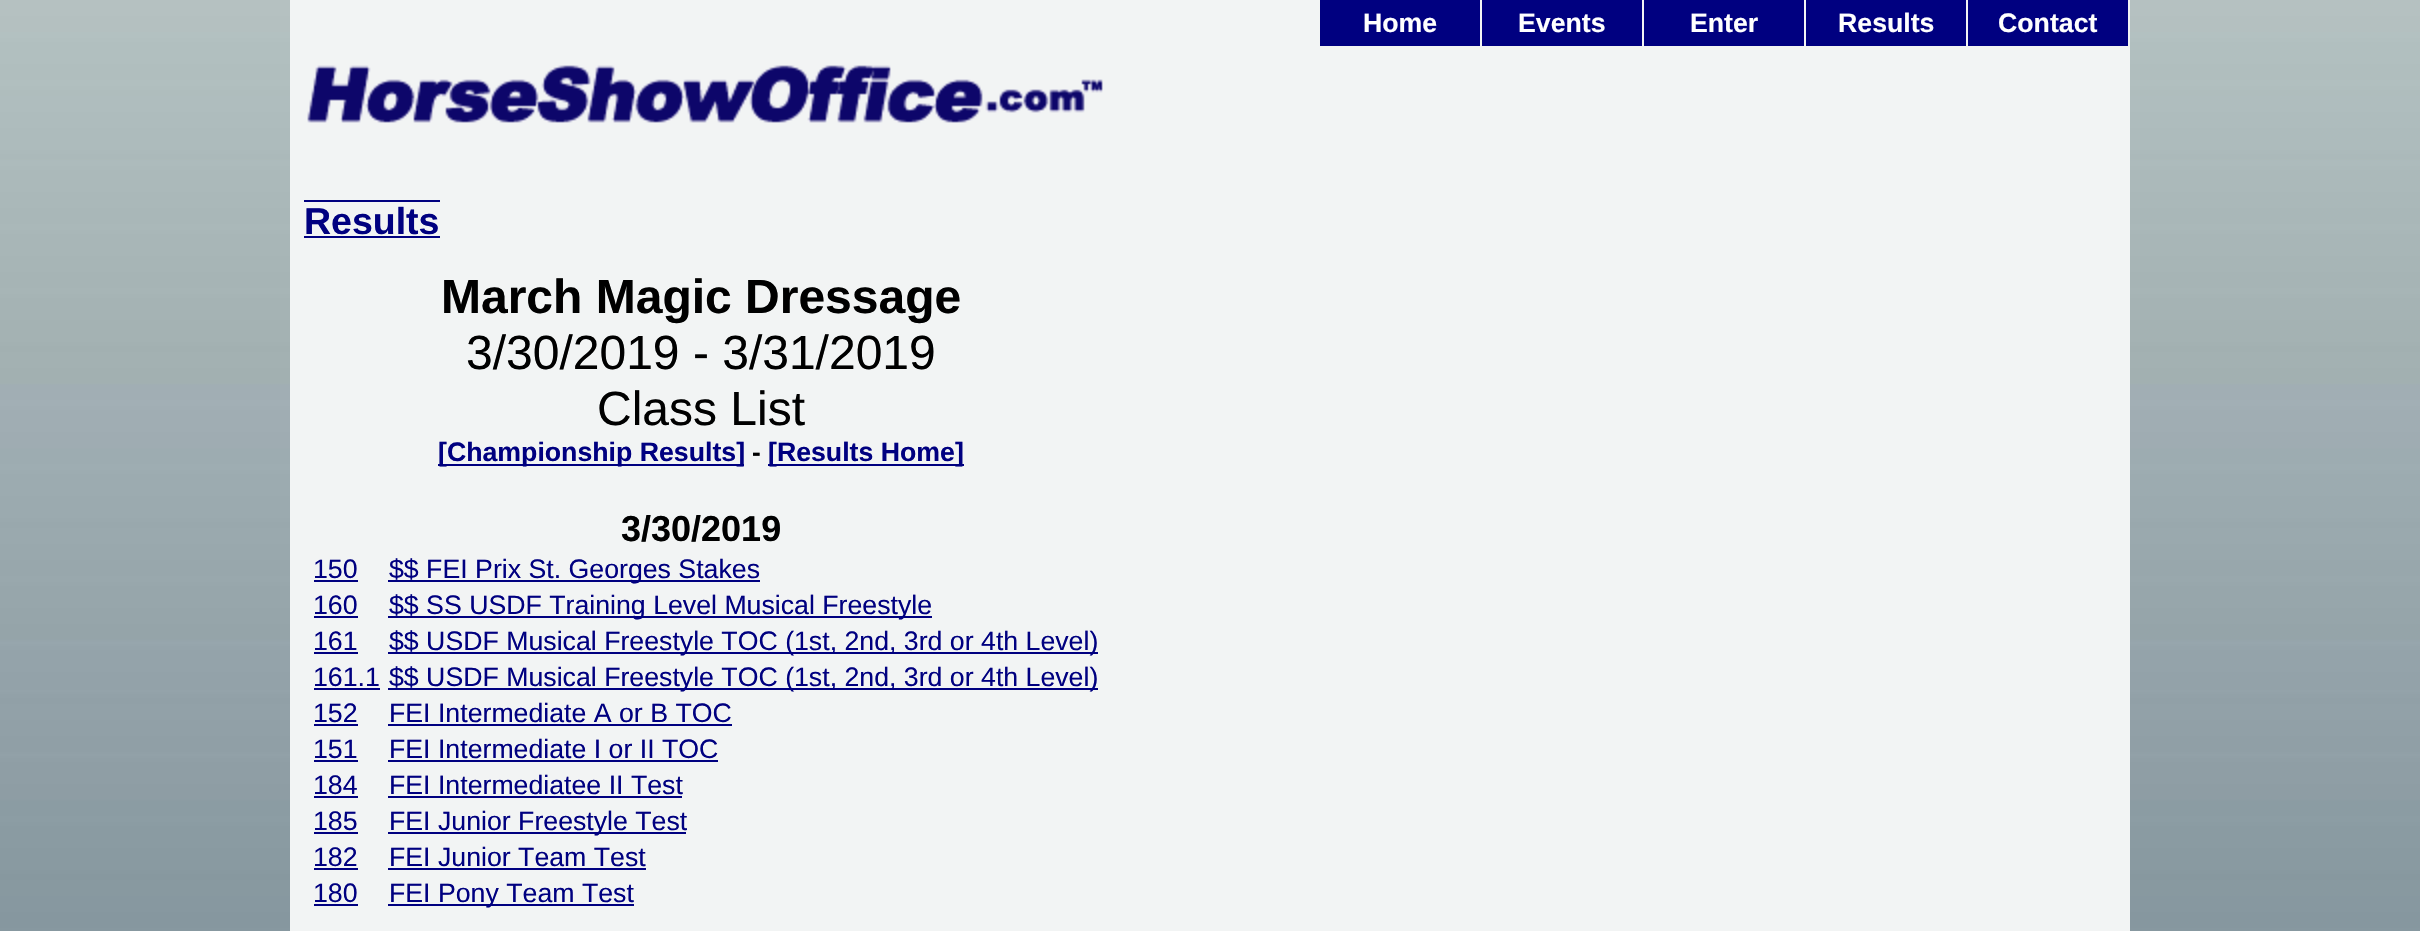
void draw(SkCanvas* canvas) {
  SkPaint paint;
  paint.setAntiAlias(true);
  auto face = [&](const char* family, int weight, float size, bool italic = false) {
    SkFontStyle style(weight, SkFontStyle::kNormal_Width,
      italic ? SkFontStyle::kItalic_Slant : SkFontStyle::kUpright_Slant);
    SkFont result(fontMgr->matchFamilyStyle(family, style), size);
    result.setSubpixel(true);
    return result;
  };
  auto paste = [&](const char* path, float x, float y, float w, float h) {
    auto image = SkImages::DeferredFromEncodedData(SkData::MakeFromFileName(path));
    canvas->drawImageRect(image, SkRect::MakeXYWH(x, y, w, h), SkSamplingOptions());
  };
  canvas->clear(0xffffffff);
  paste("img/1.png", 0, 0, 2420, 931);
  {
    const struct { float x, y, w, h; SkColor color; } items[] = {
      {290, 0, 1840, 931, 0xfff2f4f4},
      {1320, 0, 160, 46, 0xff000080},
      {1482, 0, 160, 46, 0xff000080},
      {1644, 0, 160, 46, 0xff000080},
      {1806, 0, 160, 46, 0xff000080},
      {1968, 0, 160, 46, 0xff000080},
    };
    for (auto [x, y, w, h, color] : items) {
      paint.setColor(color);
      canvas->drawRect(SkRect::MakeXYWH(x, y, w, h), paint);
    }
  }
  paste("img/2.png", 307, 65, 796, 58);
  {
    const struct { float x, y, w, h; SkColor color; } items[] = {
      {304, 236, 136, 2, 0xff000080},
      {304, 200, 136, 2, 0xff000080},
      {438, 464, 306, 2, 0xff000080},
      {768, 464, 196, 2, 0xff000080},
      {314, 580, 44, 2, 0xff000080},
      {388, 580, 372, 2, 0xff000080},
      {314, 616, 44, 2, 0xff000080},
      {388, 616, 544, 2, 0xff000080},
      {314, 652, 44, 2, 0xff000080},
      {388, 652, 710, 2, 0xff000080},
      {314, 688, 66, 2, 0xff000080},
      {388, 688, 710, 2, 0xff000080},
      {314, 724, 44, 2, 0xff000080},
      {388, 724, 344, 2, 0xff000080},
      {314, 760, 44, 2, 0xff000080},
      {388, 760, 330, 2, 0xff000080},
      {314, 796, 44, 2, 0xff000080},
      {388, 796, 294, 2, 0xff000080},
      {314, 832, 44, 2, 0xff000080},
      {388, 832, 298, 2, 0xff000080},
      {314, 868, 44, 2, 0xff000080},
      {388, 868, 258, 2, 0xff000080},
      {314, 904, 44, 2, 0xff000080},
      {388, 904, 246, 2, 0xff000080},
    };
    for (auto [x, y, w, h, color] : items) {
      paint.setColor(color);
      canvas->drawRect(SkRect::MakeXYWH(x, y, w, h), paint);
    }
  }
  auto f0 = face("Liberation Sans", 700, 26.7f);
  paint.setColor(0xffffffff);
  {
    const struct { const char* s; float x, y; } items[] = {
      {"Home", 1363, 32},
      {"Events", 1518, 32},
      {"Enter", 1690, 32},
      {"Results", 1838, 32},
      {"Contact", 1998, 32},
    };
    for (auto [s, x, y] : items) {
      canvas->drawString(s, x, y, f0, paint);
    }
  }
  auto f1 = face("Liberation Sans", 700, 37.5f);
  paint.setColor(0xff000080);
  canvas->drawString("Results", 304, 234, f1, paint);
  auto f2 = face("Liberation Sans", 700, 48);
  paint.setColor(0xff000000);
  canvas->drawString("March Magic Dressage", 441, 313, f2, paint);
  auto f3 = face("Liberation Sans", 400, 48);
  canvas->drawString("3/30/2019 - 3/31/2019", 466, 369, f3, paint);
  canvas->drawString("Class List", 597, 425, f3, paint);
  paint.setColor(0xff000080);
  canvas->drawString("[Championship Results]", 438, 461, f0, paint);
  auto f4 = face("Liberation Sans", 700, 26);
  paint.setColor(0xff000000);
  canvas->drawString("-", 752, 461, f4, paint);
  paint.setColor(0xff000080);
  canvas->drawString("[Results Home]", 768, 461, f0, paint);
  auto f5 = face("Liberation Sans", 700, 36);
  paint.setColor(0xff000000);
  canvas->drawString("3/30/2019", 621, 541, f5, paint);
  auto f6 = face("Liberation Sans", 400, 26.7f);
  paint.setColor(0xff000080);
  {
    const struct { const char* s; float x, y; } items[] = {
      {"150", 313, 578},
      {"$$ FEI Prix St. Georges Stakes", 389, 578},
      {"160", 313, 614},
      {"$$ SS USDF Training Level Musical Freestyle", 389, 614},
      {"161", 313, 650},
      {"$$ USDF Musical Freestyle TOC (1st, 2nd, 3rd or 4th Level)", 389, 650},
      {"161.1", 313, 686},
      {"$$ USDF Musical Freestyle TOC (1st, 2nd, 3rd or 4th Level)", 389, 686},
      {"152", 313, 722},
      {"FEI Intermediate A or B TOC", 389, 722},
      {"151", 313, 758},
      {"FEI Intermediate I or II TOC", 389, 758},
      {"184", 313, 794},
      {"FEI Intermediatee II Test", 389, 794},
      {"185", 313, 830},
      {"FEI Junior Freestyle Test", 389, 830},
      {"182", 313, 866},
      {"FEI Junior Team Test", 389, 866},
      {"180", 313, 902},
      {"FEI Pony Team Test", 389, 902},
    };
    for (auto [s, x, y] : items) {
      canvas->drawString(s, x, y, f6, paint);
    }
  }
}
